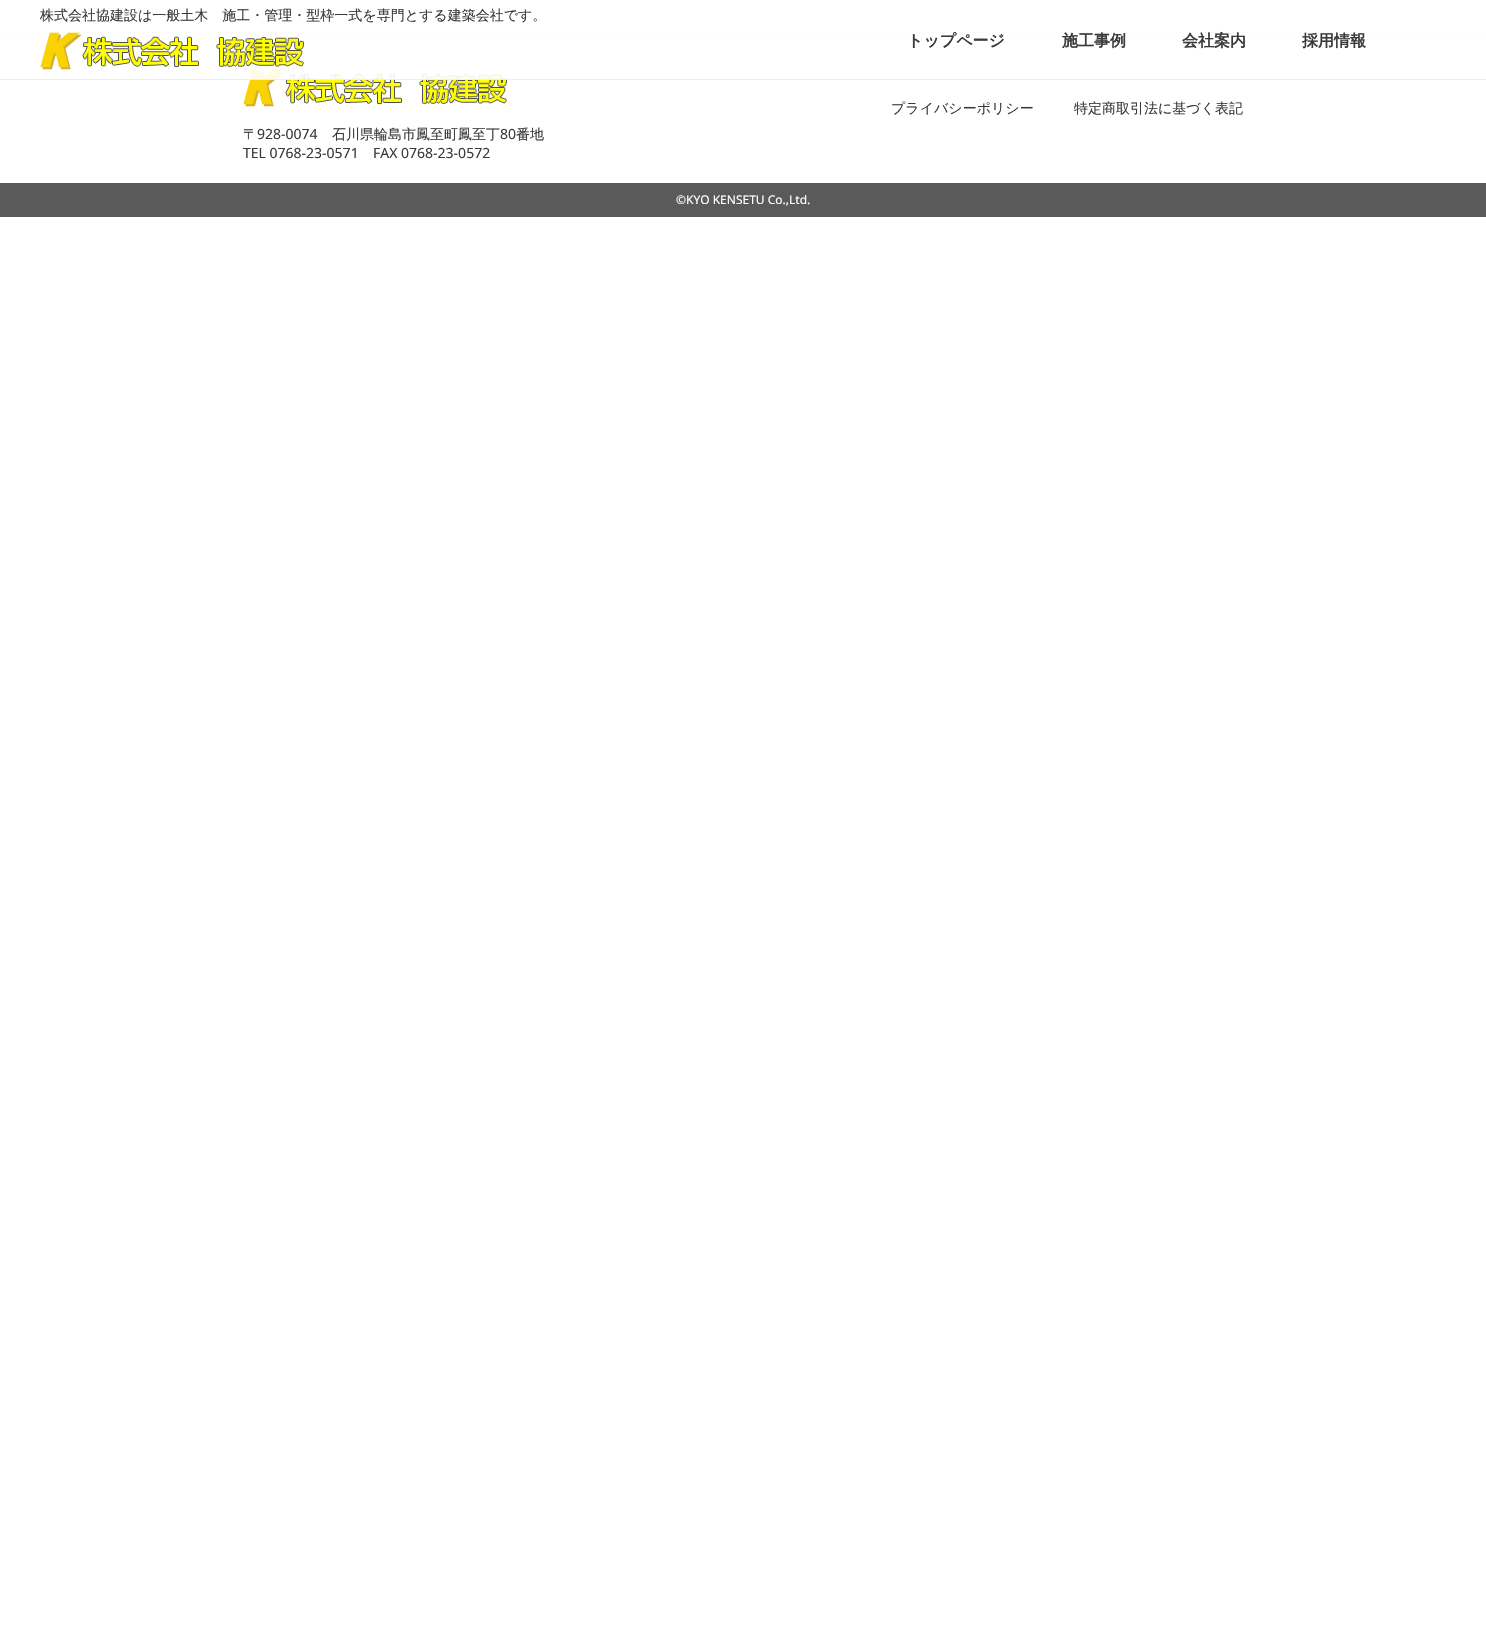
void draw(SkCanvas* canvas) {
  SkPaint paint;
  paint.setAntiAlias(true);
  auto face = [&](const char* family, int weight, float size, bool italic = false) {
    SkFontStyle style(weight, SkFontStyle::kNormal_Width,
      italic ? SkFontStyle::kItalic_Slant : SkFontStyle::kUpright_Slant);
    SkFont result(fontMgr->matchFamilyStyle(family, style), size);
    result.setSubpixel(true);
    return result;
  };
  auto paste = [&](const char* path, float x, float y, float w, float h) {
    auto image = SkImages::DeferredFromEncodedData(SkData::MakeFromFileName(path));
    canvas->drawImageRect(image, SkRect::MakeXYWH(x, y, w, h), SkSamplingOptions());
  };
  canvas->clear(0xffffffff);
  paint.setColor(0xffdedede);
  canvas->drawRect(SkRect::MakeXYWH(0, 32, 1486, 1), paint);
  paste("img/2.png", 243, 69, 264, 38);
  paint.setColor(0xe6ffffff);
  canvas->drawRect(SkRect::MakeXYWH(0, 32, 1486, 47), paint);
  paint.setColor(0xffeeeeee);
  canvas->drawRect(SkRect::MakeXYWH(0, 79, 1486, 1), paint);
  paste("img/1.png", 40, 32, 264, 38);
  paint.setColor(0xff5a5a5a);
  canvas->drawRect(SkRect::MakeXYWH(0, 183, 1486, 34), paint);
  auto f0 = face("WenQuanYi Zen Hei", 500, 14);
  paint.setColor(0xff3a3a3a);
  canvas->drawString("株式会社協建設は一般土木　施工・管理・型枠一式を専門とする建築会社です。", 40, 20, f0, paint);
  auto f1 = face("WenQuanYi Zen Hei", 700, 16);
  {
    const struct { const char* s; float x, y; } items[] = {
      {"トップページ", 907, 46},
      {"施工事例", 1062, 46},
      {"会社案内", 1182, 46},
      {"採用情報", 1302, 46},
    };
    for (auto [s, x, y] : items) {
      canvas->drawString(s, x, y, f1, paint);
    }
  }
  {
    const struct { const char* s; float x, y; } items[] = {
      {"プライバシーポリシー", 891, 113},
      {"特定商取引法に基づく表記", 1074, 113},
      {"〒", 243, 139},
    };
    for (auto [s, x, y] : items) {
      canvas->drawString(s, x, y, f0, paint);
    }
  }
  auto f2 = face("Noto Sans", 400, 14);
  canvas->drawString("928-0074", 257, 139, f2, paint);
  canvas->drawString("石川県輪島市鳳至町鳳至丁", 332, 139, f0, paint);
  canvas->drawString("80", 500, 139, f2, paint);
  canvas->drawString("番地", 516, 139, f0, paint);
  canvas->drawString("TEL 0768-23-0571", 243, 158, f2, paint);
  canvas->drawString("FAX 0768-23-0572", 373, 158, f2, paint);
  auto f3 = face("Noto Sans", 400, 12);
  paint.setColor(0xffffffff);
  canvas->drawString("©KYO KENSETU Co.,Ltd.", 676, 204, f3, paint);
}
